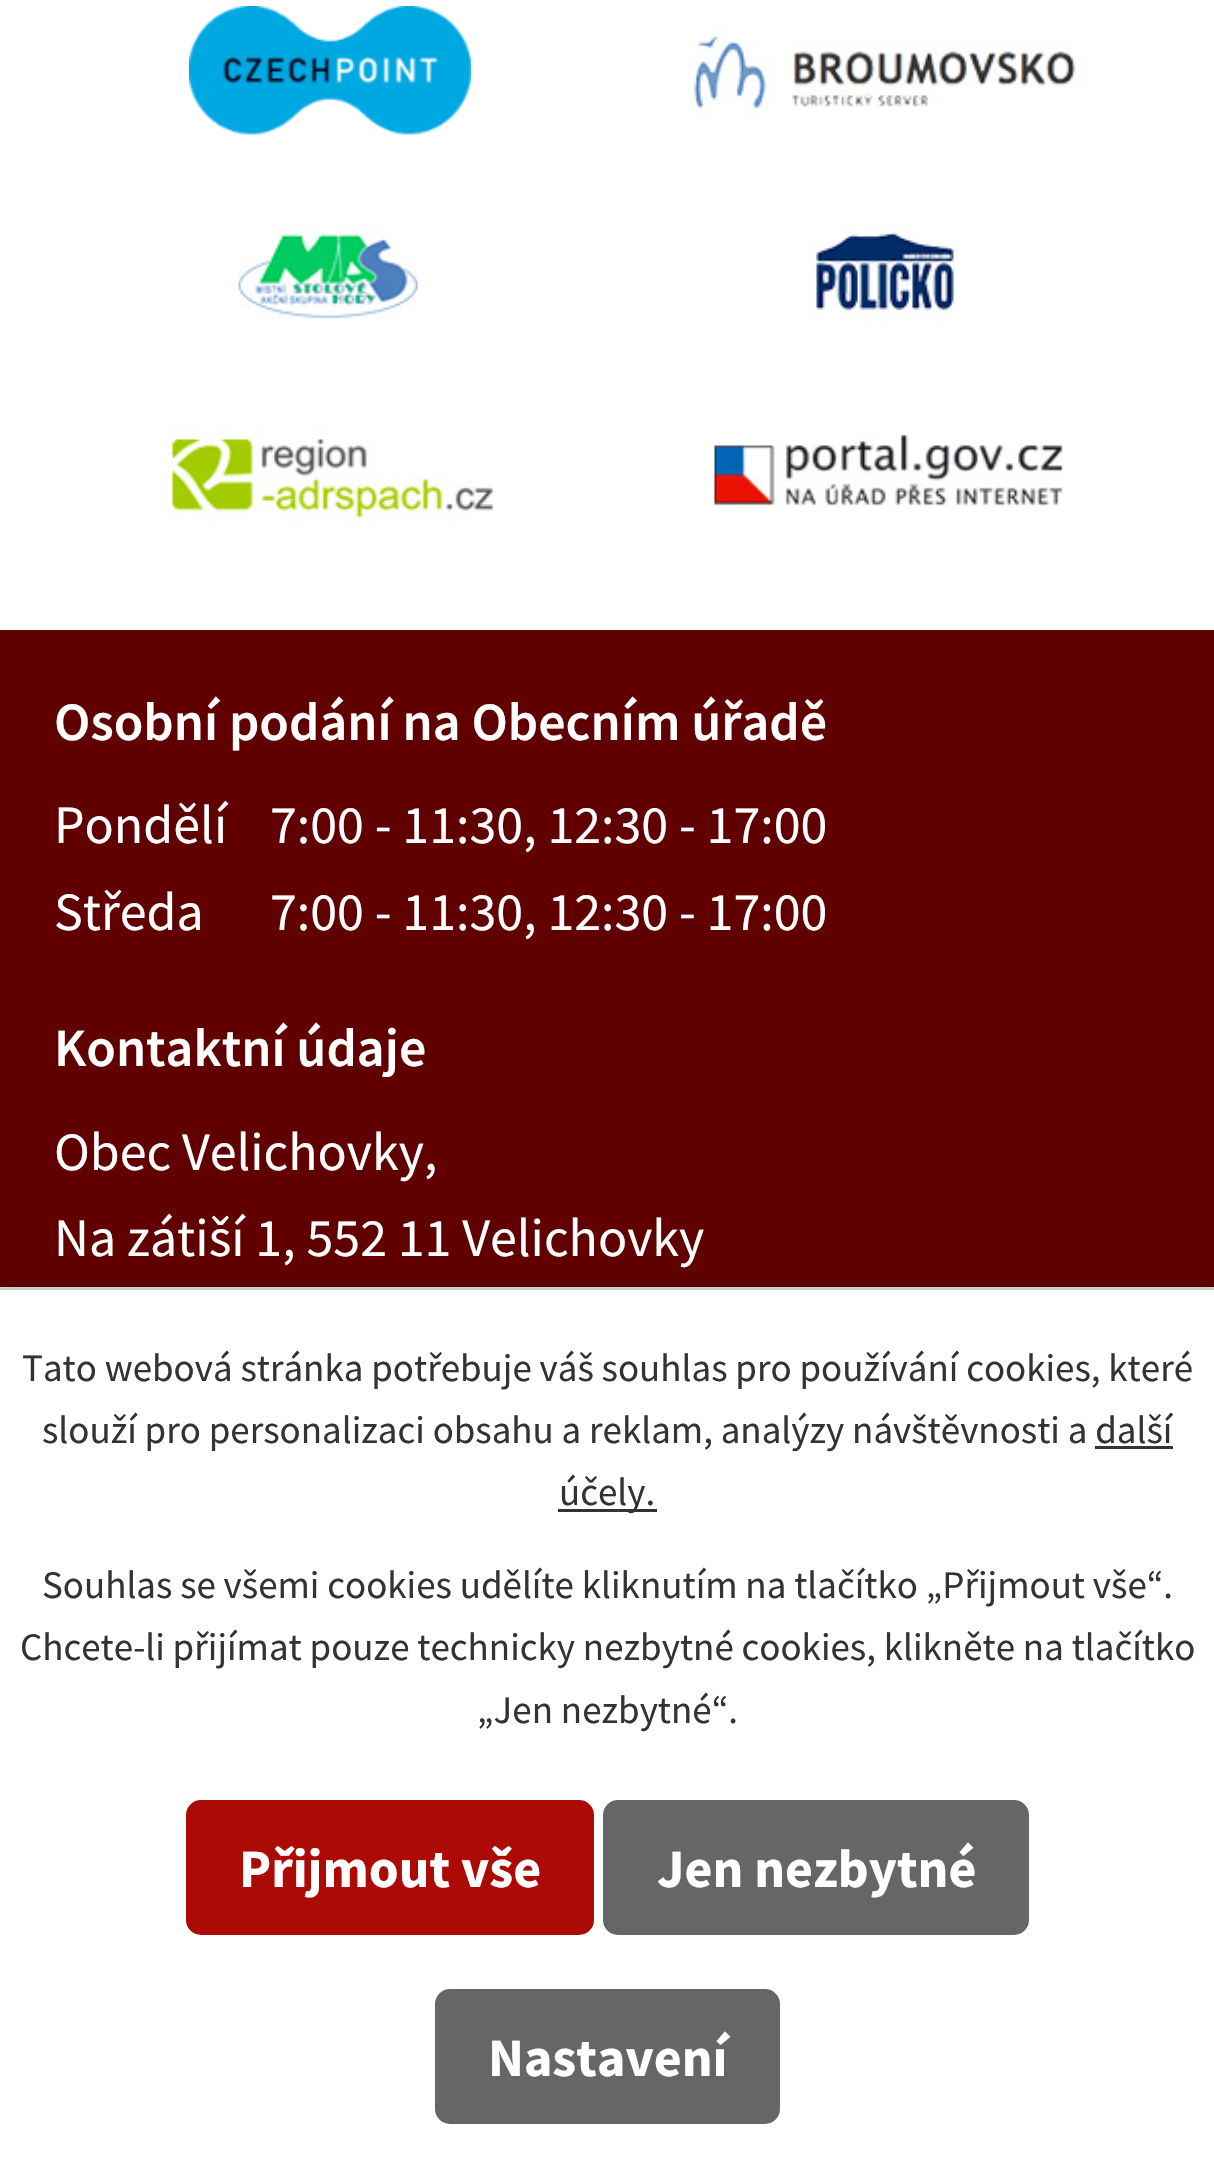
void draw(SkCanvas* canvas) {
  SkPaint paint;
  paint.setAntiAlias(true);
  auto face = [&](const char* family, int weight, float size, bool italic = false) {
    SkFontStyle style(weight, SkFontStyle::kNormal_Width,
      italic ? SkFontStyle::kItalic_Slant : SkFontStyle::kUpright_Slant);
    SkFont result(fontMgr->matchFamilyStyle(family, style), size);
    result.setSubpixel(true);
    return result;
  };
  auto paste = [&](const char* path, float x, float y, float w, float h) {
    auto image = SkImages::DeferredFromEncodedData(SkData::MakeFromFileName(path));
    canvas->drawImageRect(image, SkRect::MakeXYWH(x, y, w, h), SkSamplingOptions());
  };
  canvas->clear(0xff610000);
  paint.setColor(0xffffffff);
  canvas->drawRect(SkRect::MakeXYWH(0, 0, 1214, 630), paint);
  paste("img/1.png", 189, 6, 282, 129);
  paste("img/2.png", 693, 23, 394, 99);
  paste("img/3.png", 238, 226, 182, 96);
  paste("img/4.png", 808, 226, 148, 98);
  paste("img/5.png", 166, 427, 328, 98);
  paste("img/6.png", 712, 428, 351, 80);
  paint.setColor(0x33000000);
  paint.setMaskFilter(SkMaskFilter::MakeBlur(kNormal_SkBlurStyle, 7.5f));
  canvas->drawRect(SkRect::MakeXYWH(0, 1287, 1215, 882), paint);
  paint.setMaskFilter(nullptr);
  {
    const struct { float x, y, w, h; SkColor color; } items[] = {
      {0, 1290, 1214, 879, 0xffffffff},
      {0, 1287, 1214, 3, 0xffcccccc},
      {1095, 1446, 78, 3, 0xff333333},
      {558, 1509, 99, 3, 0xff333333},
    };
    for (auto [x, y, w, h, color] : items) {
      paint.setColor(color);
      canvas->drawRect(SkRect::MakeXYWH(x, y, w, h), paint);
    }
  }
  paint.setColor(0xffac0a04);
  canvas->drawRoundRect(SkRect::MakeXYWH(186, 1800, 408, 135), 15, 15, paint);
  paint.setColor(0xff666666);
  canvas->drawRoundRect(SkRect::MakeXYWH(603, 1800, 426, 135), 15, 15, paint);
  canvas->drawRoundRect(SkRect::MakeXYWH(435, 1989, 345, 135), 15, 15, paint);
  auto f0 = face("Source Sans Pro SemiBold", 600, 54);
  paint.setColor(0xffffffff);
  canvas->drawString("Osobní podání na Obecním úřadě", 54, 740, f0, paint);
  auto f1 = face("Source Sans Pro", 400, 54);
  {
    const struct { const char* s; float x, y; } items[] = {
      {"Pondělí", 54, 843},
      {"7:00 - 11:30, 12:30 - 17:00", 270, 843},
      {"Středa", 54, 930},
      {"7:00 - 11:30, 12:30 - 17:00", 270, 930},
    };
    for (auto [s, x, y] : items) {
      canvas->drawString(s, x, y, f1, paint);
    }
  }
  canvas->drawString("Kontaktní údaje", 54, 1066, f0, paint);
  canvas->drawString("Obec Velichovky,", 54, 1170, f1, paint);
  canvas->drawString("Na zátiší 1, 552 11 Velichovky", 54, 1256, f1, paint);
  auto f2 = face("Source Sans Pro", 400, 39);
  paint.setColor(0xff333333);
  {
    const struct { const char* s; float x, y; } items[] = {
      {"Tato webová stránka potřebuje váš souhlas pro používání cookies, které", 22, 1381},
      {"slouží pro personalizaci obsahu a reklam, analýzy návštěvnosti a další", 42, 1443},
      {"účely.", 559, 1505},
      {"Souhlas se všemi cookies udělíte kliknutím na tlačítko „Přijmout vše“.", 42, 1598},
      {"Chcete-li přijímat pouze technicky nezbytné cookies, klikněte na tlačítko", 20, 1660},
      {"„Jen nezbytné“.", 477, 1723},
    };
    for (auto [s, x, y] : items) {
      canvas->drawString(s, x, y, f2, paint);
    }
  }
  auto f3 = face("Source Sans Pro", 700, 54);
  paint.setColor(0xffffffff);
  {
    const struct { const char* s; float x, y; } items[] = {
      {"Přijmout vše", 239, 1887},
      {"Jen nezbytné", 657, 1887},
      {"Nastavení", 488, 2076},
    };
    for (auto [s, x, y] : items) {
      canvas->drawString(s, x, y, f3, paint);
    }
  }
}
